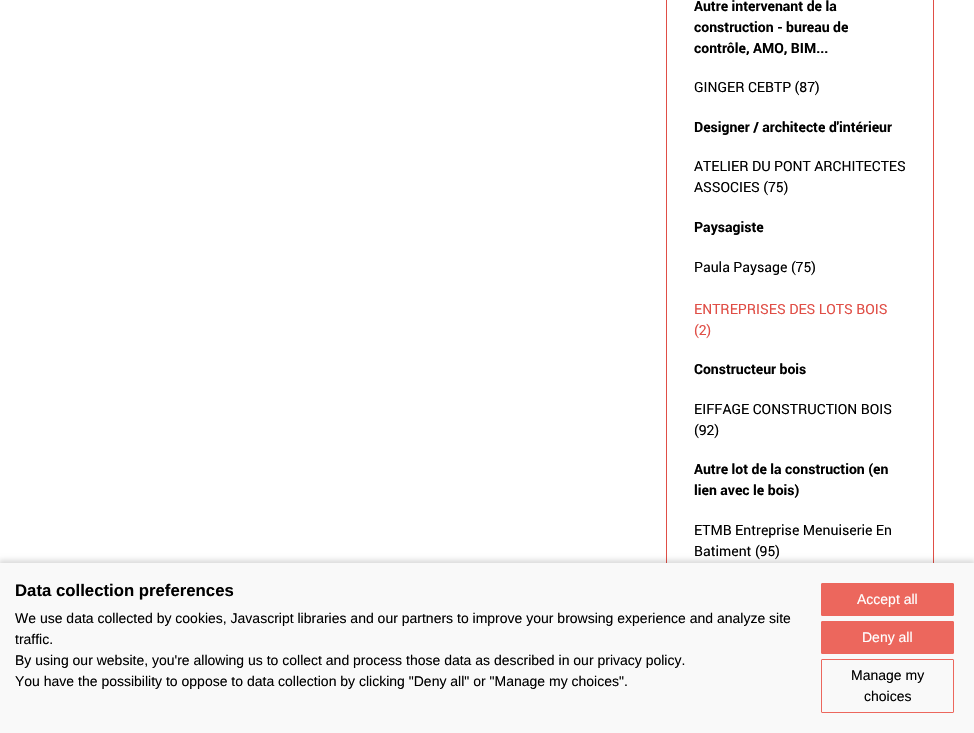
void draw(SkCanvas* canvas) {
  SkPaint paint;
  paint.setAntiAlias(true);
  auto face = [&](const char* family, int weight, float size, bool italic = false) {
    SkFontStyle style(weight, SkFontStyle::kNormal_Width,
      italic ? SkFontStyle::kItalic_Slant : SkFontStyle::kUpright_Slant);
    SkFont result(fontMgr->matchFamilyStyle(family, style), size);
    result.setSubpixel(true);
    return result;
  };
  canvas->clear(0xffffffff);
  paint.setStroke(true);
  paint.setStrokeWidth(1);
  paint.setColor(0xffe04e46);
  canvas->drawRect(SkRect::MakeXYWH(666.5f, -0.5f, 267, 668), paint);
  paint.setStroke(false);
  paint.setColor(0x24000000);
  paint.setMaskFilter(SkMaskFilter::MakeBlur(kNormal_SkBlurStyle, 2.5f));
  canvas->drawRect(SkRect::MakeXYWH(-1, 560, 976, 172), paint);
  paint.setMaskFilter(nullptr);
  paint.setColor(0xfff9f9f9);
  canvas->drawRect(SkRect::MakeXYWH(0, 563, 974, 170), paint);
  paint.setColor(0xffec675d);
  canvas->drawRoundRect(SkRect::MakeXYWH(821.5f, 583.5f, 132, 32), 0.5f, 0.5f, paint);
  paint.setStroke(true);
  canvas->drawRoundRect(SkRect::MakeXYWH(821.5f, 583.5f, 132, 32), 0.5f, 0.5f, paint);
  paint.setStroke(false);
  canvas->drawRoundRect(SkRect::MakeXYWH(821.5f, 621.5f, 132, 32), 0.5f, 0.5f, paint);
  paint.setStroke(true);
  canvas->drawRoundRect(SkRect::MakeXYWH(821.5f, 621.5f, 132, 32), 0.5f, 0.5f, paint);
  canvas->drawRoundRect(SkRect::MakeXYWH(821.5f, 659.5f, 132, 53), 0.5f, 0.5f, paint);
  auto f0 = face("Roboto", 700, 14);
  paint.setStroke(false);
  paint.setColor(0xff000000);
  {
    const struct { const char* s; float x, y; } items[] = {
      {"Autre intervenant de la", 694, 11},
      {"construction - bureau de", 694, 32},
      {"contrôle, AMO, BIM...", 694, 53},
    };
    for (auto [s, x, y] : items) {
      canvas->drawString(s, x, y, f0, paint);
    }
  }
  auto f1 = face("Roboto", 400, 14);
  canvas->drawString("GINGER CEBTP (87)", 694, 92, f1, paint);
  canvas->drawString("Designer / architecte d'intérieur", 694, 132, f0, paint);
  canvas->drawString("ATELIER DU PONT ARCHITECTES", 694, 171, f1, paint);
  canvas->drawString("ASSOCIES (75)", 694, 192, f1, paint);
  canvas->drawString("Paysagiste", 694, 232, f0, paint);
  canvas->drawString("Paula Paysage (75)", 694, 272, f1, paint);
  paint.setColor(0xffe04e46);
  canvas->drawString("ENTREPRISES DES LOTS BOIS", 694, 314, f1, paint);
  canvas->drawString("(2)", 694, 335, f1, paint);
  paint.setColor(0xff000000);
  canvas->drawString("Constructeur bois", 694, 374, f0, paint);
  canvas->drawString("EIFFAGE CONSTRUCTION BOIS", 694, 414, f1, paint);
  canvas->drawString("(92)", 694, 435, f1, paint);
  canvas->drawString("Autre lot de la construction (en", 694, 474, f0, paint);
  canvas->drawString("lien avec le bois)", 694, 495, f0, paint);
  canvas->drawString("ETMB Entreprise Menuiserie En", 694, 535, f1, paint);
  canvas->drawString("Batiment (95)", 694, 556, f1, paint);
  auto f2 = face("Liberation Sans", 700, 16.75f);
  canvas->drawString("Data collection preferences", 15, 596, f2, paint);
  auto f3 = face("Liberation Sans", 400, 14);
  {
    const struct { const char* s; float x, y; } items[] = {
      {"We use data collected by cookies, Javascript libraries and our partners to improve your browsing experience and analyze site", 15, 623},
      {"traffic.", 15, 644},
      {"By using our website, you're allowing us to collect and process those data as described in our privacy policy.", 15, 665},
      {"You have the possibility to oppose to data collection by clicking \"Deny all\" or \"Manage my choices\".", 15, 686},
    };
    for (auto [s, x, y] : items) {
      canvas->drawString(s, x, y, f3, paint);
    }
  }
  paint.setColor(0xffffffff);
  canvas->drawString("Accept all", 857, 604, f3, paint);
  canvas->drawString("Deny all", 862, 642, f3, paint);
  paint.setColor(0xff000000);
  canvas->drawString("Manage my", 851, 680, f3, paint);
  canvas->drawString("choices", 864, 701, f3, paint);
}
